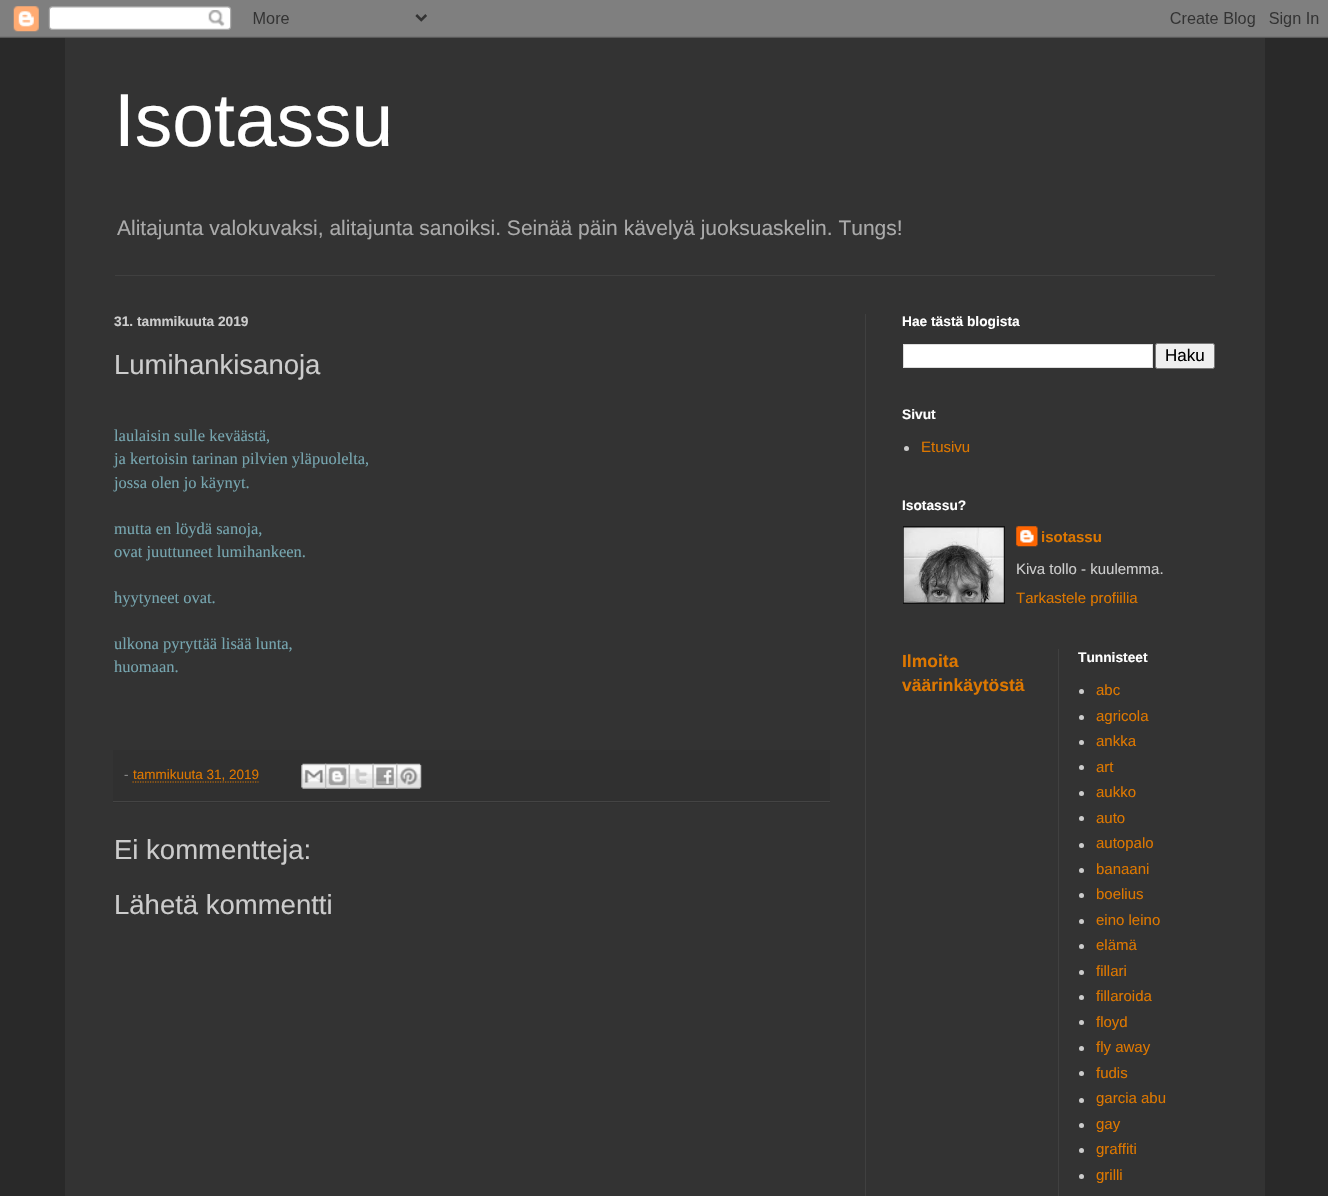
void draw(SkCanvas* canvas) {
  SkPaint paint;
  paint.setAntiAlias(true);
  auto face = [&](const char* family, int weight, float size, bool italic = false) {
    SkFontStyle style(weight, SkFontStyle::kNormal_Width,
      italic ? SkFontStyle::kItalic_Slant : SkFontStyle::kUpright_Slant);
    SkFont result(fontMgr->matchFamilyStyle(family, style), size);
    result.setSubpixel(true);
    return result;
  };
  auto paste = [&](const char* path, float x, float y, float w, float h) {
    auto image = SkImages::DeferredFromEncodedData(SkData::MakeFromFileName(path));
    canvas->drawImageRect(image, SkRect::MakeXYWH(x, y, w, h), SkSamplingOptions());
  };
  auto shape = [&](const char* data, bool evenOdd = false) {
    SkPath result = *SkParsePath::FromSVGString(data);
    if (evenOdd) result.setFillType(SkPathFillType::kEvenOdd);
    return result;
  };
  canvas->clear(0xff292929);
  paste("img/1.png", 0, 0, 1328, 38);
  {
    const struct { float x, y, w, h; SkColor color; } items[] = {
      {65, 38, 1200, 1158, 0xff333333},
      {115, 275, 1100, 1, 0xff404040},
      {865, 314, 1, 882, 0xff404040},
      {113, 750, 717, 53, 0xff303030},
      {113, 801, 717, 1, 0xff444444},
    };
    for (auto [x, y, w, h, color] : items) {
      paint.setColor(color);
      canvas->drawRect(SkRect::MakeXYWH(x, y, w, h), paint);
    }
  }
  paint.setStroke(true);
  paint.setStrokeWidth(1.2f);
  paint.setColor(0xffdd7700);
  paint.setPathEffect(SkDashPathEffect::Make({{1.25f, 1.25f}}, 0));
  canvas->drawPath(shape("M132.5 782H258.5"), paint);
  paint.setPathEffect(nullptr);
  paste("img/2.png", 301, 763, 26, 26);
  paste("img/3.png", 325, 763, 25, 26);
  paste("img/4.png", 348, 763, 26, 26);
  paste("img/5.png", 372, 763, 26, 26);
  paste("img/6.png", 396, 763, 26, 26);
  paint.setStroke(false);
  paint.setColor(0xffffffff);
  canvas->drawRect(SkRect::MakeXYWH(903.5f, 344.5f, 249, 23), paint);
  paint.setStroke(true);
  paint.setStrokeWidth(1);
  paint.setColor(0xffdddddd);
  canvas->drawRect(SkRect::MakeXYWH(903.5f, 344.5f, 249, 23), paint);
  paint.setStroke(false);
  paint.setColor(0xffefefef);
  canvas->drawRoundRect(SkRect::MakeXYWH(1155.5f, 343.5f, 59, 25), 2, 2, paint);
  paint.setStroke(true);
  paint.setColor(0xff767676);
  canvas->drawRoundRect(SkRect::MakeXYWH(1155.5f, 343.5f, 59, 25), 2, 2, paint);
  paint.setStroke(false);
  paint.setColor(0xffcccccc);
  canvas->drawCircle(906.5f, 448.5f, 2.5f, paint);
  paint.setColor(0xff111111);
  canvas->drawRect(SkRect::MakeXYWH(903, 526, 102, 78), paint);
  paste("img/7.png", 903, 527, 101, 76);
  paste("img/8.png", 1016, 526, 22, 21);
  paint.setColor(0xff404040);
  canvas->drawRect(SkRect::MakeXYWH(1058, 649, 1, 547), paint);
  paint.setColor(0xffcccccc);
  canvas->drawCircle(1081.5f, 691.5f, 2.5f, paint);
  canvas->drawCircle(1081.5f, 717.5f, 2.5f, paint);
  canvas->drawCircle(1081.5f, 742.5f, 2.5f, paint);
  canvas->drawCircle(1081.5f, 767.5f, 2.5f, paint);
  canvas->drawCircle(1081.5f, 793.5f, 2.5f, paint);
  canvas->drawCircle(1081.5f, 818.5f, 2.5f, paint);
  canvas->drawCircle(1081.5f, 845.5f, 2.5f, paint);
  canvas->drawCircle(1081.5f, 870.5f, 2.5f, paint);
  canvas->drawCircle(1081.5f, 895.5f, 2.5f, paint);
  canvas->drawCircle(1081.5f, 921.5f, 2.5f, paint);
  canvas->drawCircle(1081.5f, 946.5f, 2.5f, paint);
  canvas->drawCircle(1081.5f, 972.5f, 2.5f, paint);
  canvas->drawCircle(1081.5f, 997.5f, 2.5f, paint);
  canvas->drawCircle(1081.5f, 1022.5f, 2.5f, paint);
  canvas->drawCircle(1081.5f, 1048.5f, 2.5f, paint);
  canvas->drawCircle(1081.5f, 1073.5f, 2.5f, paint);
  canvas->drawCircle(1081.5f, 1100.5f, 2.5f, paint);
  canvas->drawCircle(1081.5f, 1125.5f, 2.5f, paint);
  canvas->drawCircle(1081.5f, 1150.5f, 2.5f, paint);
  canvas->drawCircle(1081.5f, 1176.5f, 2.5f, paint);
  auto f0 = face("Liberation Sans", 400, 75);
  paint.setColor(0xffffffff);
  canvas->drawString("Isotassu", 114, 146, f0, paint);
  auto f1 = face("Liberation Sans", 400, 21);
  paint.setColor(0xffaaaaaa);
  canvas->drawString("Alitajunta valokuvaksi, alitajunta sanoiksi. Seinää päin kävelyä juoksuaskelin. Tungs!", 117, 235, f1, paint);
  auto f2 = face("Liberation Sans", 700, 13.75f);
  paint.setColor(0xffcccccc);
  canvas->drawString("31. tammikuuta 2019", 114, 326, f2, paint);
  auto f3 = face("Liberation Sans", 400, 27.5f);
  canvas->drawString("Lumihankisanoja", 114, 374, f3, paint);
  auto f4 = face("Liberation Serif", 400, 16.5f);
  paint.setColor(0xff76a5af);
  {
    const struct { const char* s; float x, y; } items[] = {
      {"laulaisin sulle keväästä,", 114, 441},
      {"ja kertoisin tarinan pilvien yläpuolelta,", 114, 464},
      {"jossa olen jo käynyt.", 114, 488},
      {"mutta en löydä sanoja,", 114, 534},
      {"ovat juuttuneet lumihankeen.", 114, 557},
      {"hyytyneet ovat.", 114, 603},
      {"ulkona pyryttää lisää lunta,", 114, 649},
      {"huomaan.", 114, 672},
    };
    for (auto [s, x, y] : items) {
      canvas->drawString(s, x, y, f4, paint);
    }
  }
  auto f5 = face("Liberation Sans", 400, 13.5f);
  paint.setColor(0xff888888);
  canvas->drawString("-", 124, 779, f5, paint);
  paint.setColor(0xffdd7700);
  canvas->drawString("tammikuuta 31, 2019", 133, 779, f5, paint);
  paint.setColor(0xffcccccc);
  canvas->drawString("Ei kommentteja:", 114, 859, f3, paint);
  canvas->drawString("Lähetä kommentti", 114, 914, f3, paint);
  paint.setColor(0xffffffff);
  canvas->drawString("Hae tästä blogista", 902, 326, f2, paint);
  auto f6 = face("Liberation Sans", 400, 17);
  paint.setColor(0xff000000);
  canvas->drawString("Haku", 1165, 361, f6, paint);
  paint.setColor(0xffffffff);
  canvas->drawString("Sivut", 902, 419, f2, paint);
  auto f7 = face("Liberation Sans", 400, 15);
  paint.setColor(0xffdd7700);
  canvas->drawString("Etusivu", 921, 452, f7, paint);
  paint.setColor(0xffffffff);
  canvas->drawString("Isotassu?", 902, 510, f2, paint);
  auto f8 = face("Liberation Sans", 700, 15);
  paint.setColor(0xffdd7700);
  canvas->drawString("isotassu", 1041, 542, f8, paint);
  paint.setColor(0xffcccccc);
  canvas->drawString("Kiva tollo - kuulemma.", 1016, 574, f7, paint);
  paint.setColor(0xffdd7700);
  canvas->drawString("Tarkastele profiilia", 1016, 603, f7, paint);
  auto f9 = face("Liberation Sans", 700, 17.5f);
  canvas->drawString("Ilmoita", 902, 667, f9, paint);
  canvas->drawString("väärinkäytöstä", 902, 691, f9, paint);
  paint.setColor(0xffffffff);
  canvas->drawString("Tunnisteet", 1078, 662, f2, paint);
  paint.setColor(0xffdd7700);
  {
    const struct { const char* s; float x, y; } items[] = {
      {"abc", 1096, 695},
      {"agricola", 1096, 721},
      {"ankka", 1096, 746},
      {"art", 1096, 772},
      {"aukko", 1096, 797},
      {"auto", 1096, 823},
      {"autopalo", 1096, 848},
      {"banaani", 1096, 874},
      {"boelius", 1096, 899},
      {"eino leino", 1096, 925},
      {"elämä", 1096, 950},
      {"fillari", 1096, 976},
      {"fillaroida", 1096, 1001},
      {"floyd", 1096, 1027},
      {"fly away", 1096, 1052},
      {"fudis", 1096, 1078},
      {"garcia abu", 1096, 1103},
      {"gay", 1096, 1129},
      {"graffiti", 1096, 1154},
      {"grilli", 1096, 1180},
    };
    for (auto [s, x, y] : items) {
      canvas->drawString(s, x, y, f7, paint);
    }
  }
}
